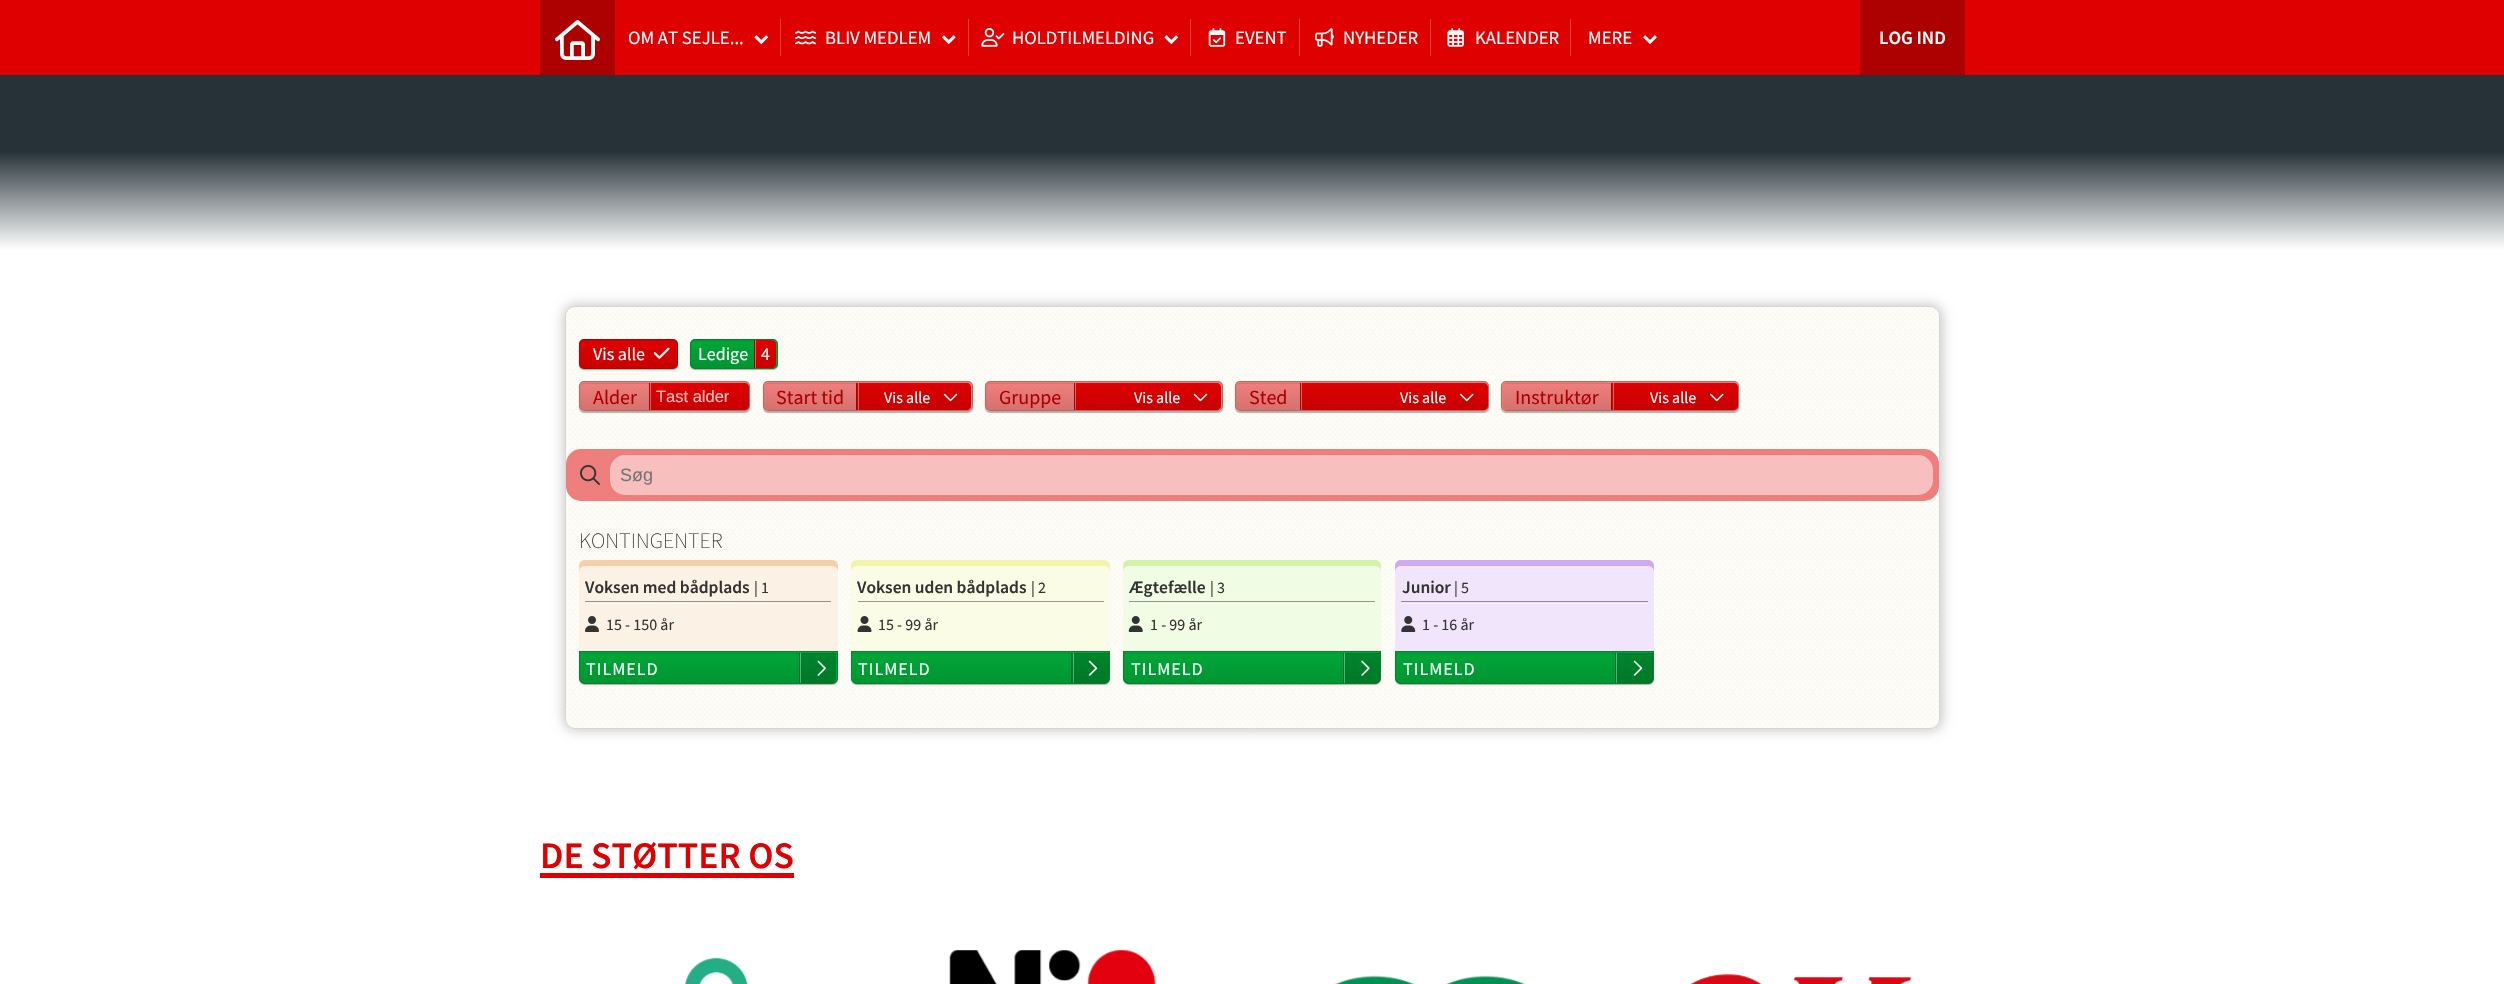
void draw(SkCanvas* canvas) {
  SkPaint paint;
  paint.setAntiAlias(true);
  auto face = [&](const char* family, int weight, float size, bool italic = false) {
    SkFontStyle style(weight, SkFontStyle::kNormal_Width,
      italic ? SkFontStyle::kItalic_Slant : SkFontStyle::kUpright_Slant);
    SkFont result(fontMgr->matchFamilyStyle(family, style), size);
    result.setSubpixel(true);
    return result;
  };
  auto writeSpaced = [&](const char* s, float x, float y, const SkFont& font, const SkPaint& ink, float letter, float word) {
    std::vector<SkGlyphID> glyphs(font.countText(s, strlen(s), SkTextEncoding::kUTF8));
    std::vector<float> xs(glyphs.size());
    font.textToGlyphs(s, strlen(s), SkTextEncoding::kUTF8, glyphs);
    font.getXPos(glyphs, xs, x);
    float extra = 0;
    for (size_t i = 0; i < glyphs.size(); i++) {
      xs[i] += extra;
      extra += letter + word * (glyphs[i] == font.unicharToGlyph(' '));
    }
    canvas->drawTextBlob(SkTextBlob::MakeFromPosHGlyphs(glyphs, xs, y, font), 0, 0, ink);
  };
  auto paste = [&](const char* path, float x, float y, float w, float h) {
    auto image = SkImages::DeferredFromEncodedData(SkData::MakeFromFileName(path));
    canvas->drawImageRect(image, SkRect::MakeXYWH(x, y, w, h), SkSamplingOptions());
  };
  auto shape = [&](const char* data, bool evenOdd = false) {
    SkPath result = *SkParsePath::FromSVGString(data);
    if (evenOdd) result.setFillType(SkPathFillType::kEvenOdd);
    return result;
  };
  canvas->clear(0xff263238);
  paint.setColor(0xffdf0101);
  canvas->drawRect(SkRect::MakeXYWH(0, 0, 2504, 75), paint);
  paint.setColor(0xffad0000);
  canvas->drawRect(SkRect::MakeXYWH(540, 0, 75, 75), paint);
  paste("img/1.png", 555, 20, 45, 40);
  paste("img/2.png", 754, 35, 14, 9);
  paint.setColor(0xffe74141);
  canvas->drawRect(SkRect::MakeXYWH(780, 19, 1, 37), paint);
  paste("img/3.png", 795, 30, 21, 15);
  paste("img/4.png", 942, 35, 14, 9);
  canvas->drawRect(SkRect::MakeXYWH(968, 19, 1, 37), paint);
  paste("img/5.png", 981, 28, 24, 19);
  paste("img/2.png", 1164, 35, 14, 9);
  canvas->drawRect(SkRect::MakeXYWH(1190, 19, 1, 37), paint);
  paste("img/6.png", 1208, 28, 18, 19);
  canvas->drawRect(SkRect::MakeXYWH(1299, 19, 1, 37), paint);
  paste("img/7.png", 1315, 28, 19, 19);
  canvas->drawRect(SkRect::MakeXYWH(1430, 19, 1, 37), paint);
  paste("img/8.png", 1447, 28, 17, 19);
  canvas->drawRect(SkRect::MakeXYWH(1570, 19, 1, 37), paint);
  paste("img/9.png", 1643, 35, 14, 9);
  paint.setColor(0xffad0000);
  canvas->drawRect(SkRect::MakeXYWH(1860, 0, 105, 75), paint);
  {
    const SkColor colors[] = {0xff263238, 0xffffffff};
    const float stops[] = {0, 1};
    const SkPoint ends[] = {{1253, 151}, {1253, 250}};
    paint.setShader(SkGradientShader::MakeLinear(ends, colors, stops, 2, SkTileMode::kClamp));
    paint.setAlpha(255);
  }
  canvas->drawRect(SkRect::MakeXYWH(0, 152, 2504, 98), paint);
  paint.setShader(nullptr);
  paint.setColor(0xffffffff);
  canvas->drawRect(SkRect::MakeXYWH(0, 250, 2504, 734), paint);
  paint.setColor(0x33000000);
  paint.setMaskFilter(SkMaskFilter::MakeBlur(kNormal_SkBlurStyle, 6));
  canvas->drawRoundRect(SkRect::MakeXYWH(563, 304, 1380, 427), 13, 13, paint);
  paint.setMaskFilter(nullptr);
  paste("img/10.png", 565, 306, 1375, 423);
  paint.setStroke(true);
  paint.setStrokeWidth(1);
  paint.setColor(0xffd6d6d6);
  canvas->drawRoundRect(SkRect::MakeXYWH(565.5f, 306.5f, 1374, 422), 9.5f, 9.5f, paint);
  paint.setStroke(false);
  paint.setColor(0x4d000000);
  paint.setMaskFilter(SkMaskFilter::MakeBlur(kNormal_SkBlurStyle, 0.5f));
  canvas->drawRoundRect(SkRect::MakeXYWH(579, 340, 99, 30), 5, 5, paint);
  paint.setMaskFilter(nullptr);
  paint.setColor(0xffdf0101);
  canvas->drawRoundRect(SkRect::MakeXYWH(579, 339, 99, 30), 5, 5, paint);
  paint.setColor(0xffc90101);
  canvas->drawPath(shape("M584 341H672C675 341 676 343 676 345C676 336 662 340 657 340H599C594 340 580 336 580 345C580 343 582 341 584 341Z"), paint);
  paint.setStroke(true);
  paint.setColor(0x33000000);
  canvas->drawRoundRect(SkRect::MakeXYWH(579.5f, 339.5f, 98, 29), 4.5f, 4.5f, paint);
  paste("img/11.png", 653, 347, 17, 12);
  paint.setStroke(false);
  {
    const SkColor colors[] = {0x00000000, 0x1a000000};
    const float stops[] = {0, 1};
    const SkPoint ends[] = {{628, 340}, {628, 368}};
    paint.setShader(SkGradientShader::MakeLinear(ends, colors, stops, 2, SkTileMode::kClamp));
    paint.setAlpha(255);
  }
  canvas->drawRoundRect(SkRect::MakeXYWH(580, 340, 96, 28), 4, 4, paint);
  paint.setShader(nullptr);
  paint.setColor(0x4d000000);
  paint.setMaskFilter(SkMaskFilter::MakeBlur(kNormal_SkBlurStyle, 0.5f));
  canvas->drawRoundRect(SkRect::MakeXYWH(690, 340, 88, 30), 5, 5, paint);
  paint.setMaskFilter(nullptr);
  paint.setColor(0xff00a637);
  canvas->drawRoundRect(SkRect::MakeXYWH(690, 339, 88, 30), 5, 5, paint);
  paint.setColor(0xff009532);
  canvas->drawPath(shape("M695 341H772C775 341 776 343 776 345C776 337 764 340 759 340H708C703 340 691 337 691 345C691 343 693 341 695 341Z"), paint);
  paint.setStroke(true);
  paint.setColor(0x33000000);
  canvas->drawRoundRect(SkRect::MakeXYWH(690.5f, 339.5f, 87, 29), 4.5f, 4.5f, paint);
  paint.setStroke(false);
  paint.setColor(0xffdf0101);
  canvas->drawPath(shape("M754 340H772C774 340 776 342 776 344V364C776 366 774 368 772 368H754Z"), paint);
  paint.setColor(0xffec6767);
  canvas->drawRect(SkRect::MakeXYWH(755, 340, 1, 28), paint);
  paint.setColor(0xffb20101);
  canvas->drawRect(SkRect::MakeXYWH(754, 340, 1, 28), paint);
  {
    const SkColor colors[] = {0x00000000, 0x1a000000};
    const float stops[] = {0, 1};
    const SkPoint ends[] = {{734, 340}, {734, 368}};
    paint.setShader(SkGradientShader::MakeLinear(ends, colors, stops, 2, SkTileMode::kClamp));
    paint.setAlpha(255);
  }
  canvas->drawRoundRect(SkRect::MakeXYWH(691, 340, 85, 28), 4, 4, paint);
  canvas->save();
  canvas->clipPath(shape("M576 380H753V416H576ZM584 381H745C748 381 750 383 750 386V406C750 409 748 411 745 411H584C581 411 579 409 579 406V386C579 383 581 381 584 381Z", true), true);
  paint.setShader(nullptr);
  paint.setColor(0x4d000000);
  paint.setMaskFilter(SkMaskFilter::MakeBlur(kNormal_SkBlurStyle, 0.5f));
  canvas->drawRoundRect(SkRect::MakeXYWH(579, 383, 171, 30), 5, 5, paint);
  paint.setMaskFilter(nullptr);
  canvas->restore();
  paint.setColor(0x80df0101);
  canvas->drawRoundRect(SkRect::MakeXYWH(579, 381, 171, 30), 5, 5, paint);
  paint.setColor(0xffd77270);
  canvas->drawPath(shape("M584 384H745C747 384 749 385 749 388V387C749 385 747 383 745 383H584C582 383 580 385 580 387V388C580 385 582 384 584 384Z"), paint);
  paint.setStroke(true);
  paint.setColor(0x33000000);
  canvas->drawRoundRect(SkRect::MakeXYWH(579.5f, 381.5f, 170, 29), 4.5f, 4.5f, paint);
  paint.setStroke(false);
  paint.setColor(0xffdf0101);
  canvas->drawPath(shape("M649 383H745C747 383 749 385 749 387V406C749 408 747 410 745 410H649Z"), paint);
  paint.setColor(0xffec6767);
  canvas->drawRect(SkRect::MakeXYWH(650, 383, 1, 27), paint);
  paint.setColor(0xffb20101);
  canvas->drawRect(SkRect::MakeXYWH(649, 383, 1, 27), paint);
  {
    const SkColor colors[] = {0x00000000, 0x1a000000};
    const float stops[] = {0, 1};
    const SkPoint ends[] = {{664, 383}, {664, 410}};
    paint.setShader(SkGradientShader::MakeLinear(ends, colors, stops, 2, SkTileMode::kClamp));
    paint.setAlpha(255);
  }
  canvas->drawRoundRect(SkRect::MakeXYWH(580, 383, 169, 27), 4, 4, paint);
  canvas->save();
  canvas->clipPath(shape("M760 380H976V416H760ZM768 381H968C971 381 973 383 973 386V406C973 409 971 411 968 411H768C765 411 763 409 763 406V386C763 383 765 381 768 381Z", true), true);
  paint.setShader(nullptr);
  paint.setColor(0x4d000000);
  paint.setMaskFilter(SkMaskFilter::MakeBlur(kNormal_SkBlurStyle, 0.5f));
  canvas->drawRoundRect(SkRect::MakeXYWH(763, 383, 210, 30), 5, 5, paint);
  paint.setMaskFilter(nullptr);
  canvas->restore();
  paint.setColor(0x80df0101);
  canvas->drawRoundRect(SkRect::MakeXYWH(763, 381, 210, 30), 5, 5, paint);
  paint.setColor(0xffd77270);
  canvas->drawPath(shape("M768 384H968C970 384 971 385 971 388V387C971 385 969 383 967 383H768C766 383 764 385 764 387V388C764 385 765 384 768 384Z"), paint);
  paint.setStroke(true);
  paint.setColor(0x33000000);
  canvas->drawRoundRect(SkRect::MakeXYWH(763.5f, 381.5f, 209, 29), 4.5f, 4.5f, paint);
  paint.setStroke(false);
  paint.setColor(0xffdf0101);
  canvas->drawPath(shape("M856 383H967C969 383 971 385 971 387V406C971 408 969 410 967 410H856Z"), paint);
  paint.setColor(0xffec6767);
  canvas->drawRect(SkRect::MakeXYWH(858, 383, 1, 27), paint);
  paint.setColor(0xffb20101);
  canvas->drawRect(SkRect::MakeXYWH(856, 383, 1, 27), paint);
  paste("img/12.png", 943, 393, 15, 9);
  {
    const SkColor colors[] = {0x00000000, 0x1a000000};
    const float stops[] = {0, 1};
    const SkPoint ends[] = {{868, 383}, {868, 410}};
    paint.setShader(SkGradientShader::MakeLinear(ends, colors, stops, 2, SkTileMode::kClamp));
    paint.setAlpha(255);
  }
  canvas->drawRoundRect(SkRect::MakeXYWH(764, 383, 207, 27), 4, 4, paint);
  canvas->save();
  canvas->clipPath(shape("M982 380H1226V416H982ZM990 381H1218C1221 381 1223 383 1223 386V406C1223 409 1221 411 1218 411H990C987 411 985 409 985 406V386C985 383 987 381 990 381Z", true), true);
  paint.setShader(nullptr);
  paint.setColor(0x4d000000);
  paint.setMaskFilter(SkMaskFilter::MakeBlur(kNormal_SkBlurStyle, 0.5f));
  canvas->drawRoundRect(SkRect::MakeXYWH(985, 383, 238, 30), 5, 5, paint);
  paint.setMaskFilter(nullptr);
  canvas->restore();
  paint.setColor(0x80df0101);
  canvas->drawRoundRect(SkRect::MakeXYWH(985, 381, 238, 30), 5, 5, paint);
  paint.setColor(0xffd77270);
  canvas->drawPath(shape("M990 384H1218C1220 384 1221 385 1221 388C1221 385 1220 383 1217 383H990C987 383 986 385 986 388C986 385 988 384 990 384Z"), paint);
  paint.setStroke(true);
  paint.setColor(0x33000000);
  canvas->drawRoundRect(SkRect::MakeXYWH(985.5f, 381.5f, 237, 29), 4.5f, 4.5f, paint);
  paint.setStroke(false);
  paint.setColor(0xffdf0101);
  canvas->drawPath(shape("M1074 383H1217C1219 383 1221 385 1221 387V406C1221 408 1219 410 1217 410H1074Z"), paint);
  paint.setColor(0xffec6767);
  canvas->drawRect(SkRect::MakeXYWH(1075, 383, 1, 27), paint);
  paint.setColor(0xffb20101);
  canvas->drawRect(SkRect::MakeXYWH(1074, 383, 1, 27), paint);
  paste("img/12.png", 1193, 393, 15, 9);
  {
    const SkColor colors[] = {0x00000000, 0x1a000000};
    const float stops[] = {0, 1};
    const SkPoint ends[] = {{1104, 383}, {1104, 410}};
    paint.setShader(SkGradientShader::MakeLinear(ends, colors, stops, 2, SkTileMode::kClamp));
    paint.setAlpha(255);
  }
  canvas->drawRoundRect(SkRect::MakeXYWH(986, 383, 235, 27), 4, 4, paint);
  canvas->save();
  canvas->clipPath(shape("M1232 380H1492V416H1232ZM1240 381H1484C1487 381 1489 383 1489 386V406C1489 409 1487 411 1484 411H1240C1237 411 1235 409 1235 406V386C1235 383 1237 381 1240 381Z", true), true);
  paint.setShader(nullptr);
  paint.setColor(0x4d000000);
  paint.setMaskFilter(SkMaskFilter::MakeBlur(kNormal_SkBlurStyle, 0.5f));
  canvas->drawRoundRect(SkRect::MakeXYWH(1235, 383, 254, 30), 5, 5, paint);
  paint.setMaskFilter(nullptr);
  canvas->restore();
  paint.setColor(0x80df0101);
  canvas->drawRoundRect(SkRect::MakeXYWH(1235, 381, 254, 30), 5, 5, paint);
  paint.setColor(0xffd77270);
  canvas->drawPath(shape("M1240 384H1484C1486 384 1488 385 1488 388V387C1488 385 1486 383 1484 383H1240C1238 383 1236 385 1236 387V388C1236 385 1238 384 1240 384Z"), paint);
  paint.setStroke(true);
  paint.setColor(0x33000000);
  canvas->drawRoundRect(SkRect::MakeXYWH(1235.5f, 381.5f, 253, 29), 4.5f, 4.5f, paint);
  paint.setStroke(false);
  paint.setColor(0xffdf0101);
  canvas->drawPath(shape("M1300 383H1484C1486 383 1488 385 1488 387V406C1488 408 1486 410 1484 410H1300Z"), paint);
  paint.setColor(0xffec6767);
  canvas->drawRect(SkRect::MakeXYWH(1301, 383, 1, 27), paint);
  paint.setColor(0xffb20101);
  canvas->drawRect(SkRect::MakeXYWH(1300, 383, 1, 27), paint);
  paste("img/13.png", 1460, 393, 14, 9);
  {
    const SkColor colors[] = {0x00000000, 0x1a000000};
    const float stops[] = {0, 1};
    const SkPoint ends[] = {{1362, 383}, {1362, 410}};
    paint.setShader(SkGradientShader::MakeLinear(ends, colors, stops, 2, SkTileMode::kClamp));
    paint.setAlpha(255);
  }
  canvas->drawRoundRect(SkRect::MakeXYWH(1236, 383, 252, 27), 4, 4, paint);
  canvas->save();
  canvas->clipPath(shape("M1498 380H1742V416H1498ZM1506 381H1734C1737 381 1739 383 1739 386V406C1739 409 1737 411 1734 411H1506C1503 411 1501 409 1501 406V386C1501 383 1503 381 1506 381Z", true), true);
  paint.setShader(nullptr);
  paint.setColor(0x4d000000);
  paint.setMaskFilter(SkMaskFilter::MakeBlur(kNormal_SkBlurStyle, 0.5f));
  canvas->drawRoundRect(SkRect::MakeXYWH(1501, 383, 238, 30), 5, 5, paint);
  paint.setMaskFilter(nullptr);
  canvas->restore();
  paint.setColor(0x80df0101);
  canvas->drawRoundRect(SkRect::MakeXYWH(1501, 381, 238, 30), 5, 5, paint);
  paint.setColor(0xffd77270);
  canvas->drawPath(shape("M1506 384H1734C1736 384 1738 385 1738 388C1738 385 1737 383 1734 383H1507L1504 384Z"), paint);
  paint.setStroke(true);
  paint.setColor(0x33000000);
  canvas->drawRoundRect(SkRect::MakeXYWH(1501.5f, 381.5f, 237, 29), 4.5f, 4.5f, paint);
  paint.setStroke(false);
  paint.setColor(0xffdf0101);
  canvas->drawPath(shape("M1611 383H1734C1736 383 1738 385 1738 387V406C1738 408 1736 410 1734 410H1611Z"), paint);
  paint.setColor(0xffec6767);
  canvas->drawRect(SkRect::MakeXYWH(1613, 383, 1, 27), paint);
  paint.setColor(0xffb20101);
  canvas->drawRect(SkRect::MakeXYWH(1611, 383, 1, 27), paint);
  paste("img/13.png", 1710, 393, 14, 9);
  {
    const SkColor colors[] = {0x00000000, 0x1a000000};
    const float stops[] = {0, 1};
    const SkPoint ends[] = {{1620, 383}, {1620, 410}};
    paint.setShader(SkGradientShader::MakeLinear(ends, colors, stops, 2, SkTileMode::kClamp));
    paint.setAlpha(255);
  }
  canvas->drawRoundRect(SkRect::MakeXYWH(1503, 383, 235, 27), 4, 4, paint);
  paint.setShader(nullptr);
  paint.setColor(0x80df0101);
  canvas->drawRoundRect(SkRect::MakeXYWH(566, 449, 1373, 52), 15, 15, paint);
  paste("img/14.png", 580, 465, 20, 20);
  paint.setColor(0x80ffffff);
  canvas->drawRoundRect(SkRect::MakeXYWH(610, 455, 1323, 40), 15, 15, paint);
  paint.setColor(0xfff5d0a9);
  canvas->drawPath(shape("M585 560H832C835.5 560 838 562.5 838 566V671C838 678 832 684 825 684H592C585 684 579 678 579 671V566C579 562.5 581.5 560 585 560Z"), paint);
  paint.setColor(0xfffcf1e5);
  canvas->drawPath(shape("M585 566H832C835.5 566 838 568.5 838 572V651H579V572C579 568.5 581.5 566 585 566Z"), paint);
  paint.setColor(0xff979189);
  canvas->drawRect(SkRect::MakeXYWH(585, 601, 246, 1), paint);
  paint.setColor(0xfffdf7ef);
  canvas->drawRect(SkRect::MakeXYWH(585, 603, 246, 1), paint);
  paste("img/15.png", 585, 616, 14, 16);
  paint.setColor(0x4d000000);
  paint.setMaskFilter(SkMaskFilter::MakeBlur(kNormal_SkBlurStyle, 0.5f));
  canvas->drawRoundRect(SkRect::MakeXYWH(579, 653, 259, 32), 6, 6, paint);
  paint.setMaskFilter(nullptr);
  paint.setColor(0xff00a637);
  canvas->drawPath(shape("M579 651H838V678C838 681.5 835.5 684 832 684H585C581.5 684 579 681.5 579 678Z"), paint);
  paint.setColor(0xff009532);
  canvas->drawRect(SkRect::MakeXYWH(580, 653, 256, 1), paint);
  paint.setStroke(true);
  paint.setColor(0x33000000);
  canvas->drawPath(shape("M579.5 651.5H837.5V678C837.5 681 835 683.5 832 683.5H585C582 683.5 579.5 681 579.5 678Z"), paint);
  paint.setStroke(false);
  canvas->drawPath(shape("M799 653H836V678C836 681 834 683 831 683H799Z"), paint);
  paint.setColor(0x66ffffff);
  canvas->drawRect(SkRect::MakeXYWH(800, 653, 1, 30), paint);
  paint.setColor(0x33000000);
  canvas->drawRect(SkRect::MakeXYWH(799, 653, 1, 30), paint);
  paste("img/16.png", 817, 660, 9, 16);
  {
    const SkColor colors[] = {0x00000000, 0x1a000000};
    const float stops[] = {0, 1};
    const SkPoint ends[] = {{708, 653}, {708, 683}};
    paint.setShader(SkGradientShader::MakeLinear(ends, colors, stops, 2, SkTileMode::kClamp));
    paint.setAlpha(255);
  }
  canvas->drawPath(shape("M580 653H836V678C836 681 834 683 831 683H585C582 683 580 681 580 678Z"), paint);
  paint.setShader(nullptr);
  paint.setColor(0xfff2f5a9);
  canvas->drawPath(shape("M857 560H1104C1107.5 560 1110 562.5 1110 566V671C1110 678 1104 684 1097 684H864C857 684 851 678 851 671V566C851 562.5 853.5 560 857 560Z"), paint);
  paint.setColor(0xfffbfce5);
  canvas->drawPath(shape("M857 566H1104C1107.5 566 1110 568.5 1110 572V651H851V572C851 568.5 853.5 566 857 566Z"), paint);
  paint.setColor(0xff979789);
  canvas->drawRect(SkRect::MakeXYWH(858, 601, 246, 1), paint);
  paint.setColor(0xfffdfdef);
  canvas->drawRect(SkRect::MakeXYWH(858, 603, 246, 1), paint);
  paste("img/17.png", 857, 616, 15, 16);
  paint.setColor(0x4d000000);
  paint.setMaskFilter(SkMaskFilter::MakeBlur(kNormal_SkBlurStyle, 0.5f));
  canvas->drawRoundRect(SkRect::MakeXYWH(851, 653, 259, 32), 6, 6, paint);
  paint.setMaskFilter(nullptr);
  paint.setColor(0xff00a637);
  canvas->drawPath(shape("M851 651H1110V678C1110 681.5 1107.5 684 1104 684H857C853.5 684 851 681.5 851 678Z"), paint);
  paint.setColor(0xff009532);
  canvas->drawRect(SkRect::MakeXYWH(853, 653, 256, 1), paint);
  paint.setStroke(true);
  paint.setColor(0x33000000);
  canvas->drawPath(shape("M851.5 651.5H1109.5V678C1109.5 681 1107 683.5 1104 683.5H857C854 683.5 851.5 681 851.5 678Z"), paint);
  paint.setStroke(false);
  canvas->drawPath(shape("M1071 653H1109V678C1109 681 1107 683 1104 683H1071Z"), paint);
  paint.setColor(0x66ffffff);
  canvas->drawRect(SkRect::MakeXYWH(1073, 653, 1, 30), paint);
  paint.setColor(0x33000000);
  canvas->drawRect(SkRect::MakeXYWH(1071, 653, 1, 30), paint);
  paste("img/18.png", 1088, 660, 10, 16);
  {
    const SkColor colors[] = {0x00000000, 0x1a000000};
    const float stops[] = {0, 1};
    const SkPoint ends[] = {{981, 653}, {981, 683}};
    paint.setShader(SkGradientShader::MakeLinear(ends, colors, stops, 2, SkTileMode::kClamp));
    paint.setAlpha(255);
  }
  canvas->drawPath(shape("M853 653H1109V678C1109 681 1107 683 1104 683H858C855 683 853 681 853 678Z"), paint);
  paint.setShader(nullptr);
  paint.setColor(0xffd0f5a9);
  canvas->drawPath(shape("M1129 560H1375C1378.5 560 1381 562.5 1381 566V671C1381 678 1375 684 1368 684H1136C1129 684 1123 678 1123 671V566C1123 562.5 1125.5 560 1129 560Z"), paint);
  paint.setColor(0xfff1fce5);
  canvas->drawPath(shape("M1129 566H1375C1378.5 566 1381 568.5 1381 572V651H1123V572C1123 568.5 1125.5 566 1129 566Z"), paint);
  paint.setColor(0xff919789);
  canvas->drawRect(SkRect::MakeXYWH(1129, 601, 246, 1), paint);
  paint.setColor(0xfff7fdef);
  canvas->drawRect(SkRect::MakeXYWH(1129, 603, 246, 1), paint);
  paste("img/19.png", 1128, 616, 15, 16);
  paint.setColor(0x4d000000);
  paint.setMaskFilter(SkMaskFilter::MakeBlur(kNormal_SkBlurStyle, 0.5f));
  canvas->drawRoundRect(SkRect::MakeXYWH(1123, 653, 258, 32), 6, 6, paint);
  paint.setMaskFilter(nullptr);
  paint.setColor(0xff00a637);
  canvas->drawPath(shape("M1123 651H1381V678C1381 681.5 1378.5 684 1375 684H1129C1125.5 684 1123 681.5 1123 678Z"), paint);
  paint.setColor(0xff009532);
  canvas->drawRect(SkRect::MakeXYWH(1124, 653, 256, 1), paint);
  paint.setStroke(true);
  paint.setColor(0x33000000);
  canvas->drawPath(shape("M1123.5 651.5H1380.5V678C1380.5 681 1378 683.5 1375 683.5H1129C1126 683.5 1123.5 681 1123.5 678Z"), paint);
  paint.setStroke(false);
  canvas->drawPath(shape("M1343 653H1380V678C1380 681 1378 683 1375 683H1343Z"), paint);
  paint.setColor(0x66ffffff);
  canvas->drawRect(SkRect::MakeXYWH(1344, 653, 1, 30), paint);
  paint.setColor(0x33000000);
  canvas->drawRect(SkRect::MakeXYWH(1343, 653, 1, 30), paint);
  paste("img/20.png", 1361, 660, 9, 16);
  {
    const SkColor colors[] = {0x00000000, 0x1a000000};
    const float stops[] = {0, 1};
    const SkPoint ends[] = {{1252, 653}, {1252, 683}};
    paint.setShader(SkGradientShader::MakeLinear(ends, colors, stops, 2, SkTileMode::kClamp));
    paint.setAlpha(255);
  }
  canvas->drawPath(shape("M1124 653H1380V678C1380 681 1378 683 1375 683H1129C1126 683 1124 681 1124 678Z"), paint);
  paint.setShader(nullptr);
  paint.setColor(0xffd0a9f5);
  canvas->drawPath(shape("M1401 560H1648C1651.5 560 1654 562.5 1654 566V671C1654 678 1648 684 1641 684H1408C1401 684 1395 678 1395 671V566C1395 562.5 1397.5 560 1401 560Z"), paint);
  paint.setColor(0xfff1e5fc);
  canvas->drawPath(shape("M1401 566H1648C1651.5 566 1654 568.5 1654 572V651H1395V572C1395 568.5 1397.5 566 1401 566Z"), paint);
  paint.setColor(0xff918997);
  canvas->drawRect(SkRect::MakeXYWH(1401, 601, 247, 1), paint);
  paint.setColor(0xfff7effd);
  canvas->drawRect(SkRect::MakeXYWH(1401, 603, 247, 1), paint);
  paste("img/21.png", 1401, 616, 15, 16);
  paint.setColor(0x4d000000);
  paint.setMaskFilter(SkMaskFilter::MakeBlur(kNormal_SkBlurStyle, 0.5f));
  canvas->drawRoundRect(SkRect::MakeXYWH(1395, 653, 259, 32), 6, 6, paint);
  paint.setMaskFilter(nullptr);
  paint.setColor(0xff00a637);
  canvas->drawPath(shape("M1395 651H1654V678C1654 681.5 1651.5 684 1648 684H1401C1397.5 684 1395 681.5 1395 678Z"), paint);
  paint.setColor(0xff009532);
  canvas->drawPath(shape("M1396 654H1652V679L1651 682C1652 681 1653 679 1653 678V653H1396Z"), paint);
  paint.setStroke(true);
  paint.setColor(0x33000000);
  canvas->drawPath(shape("M1395.5 651.5H1653.5V678C1653.5 681 1651 683.5 1648 683.5H1401C1398 683.5 1395.5 681 1395.5 678Z"), paint);
  paint.setStroke(false);
  canvas->drawPath(shape("M1615 653H1653V678C1653 681 1651 683 1648 683H1615Z"), paint);
  paint.setColor(0x66ffffff);
  canvas->drawRect(SkRect::MakeXYWH(1616, 653, 1, 30), paint);
  paint.setColor(0x33000000);
  canvas->drawRect(SkRect::MakeXYWH(1615, 653, 1, 30), paint);
  paste("img/18.png", 1633, 660, 10, 16);
  {
    const SkColor colors[] = {0x00000000, 0x1a000000};
    const float stops[] = {0, 1};
    const SkPoint ends[] = {{1524, 653}, {1524, 683}};
    paint.setShader(SkGradientShader::MakeLinear(ends, colors, stops, 2, SkTileMode::kClamp));
    paint.setAlpha(255);
  }
  canvas->drawPath(shape("M1396 653H1653V678C1653 681 1651 683 1648 683H1401C1398 683 1396 681 1396 678Z"), paint);
  paint.setShader(nullptr);
  paint.setColor(0xffdf0101);
  canvas->drawRect(SkRect::MakeXYWH(540, 873, 254, 5), paint);
  paste("img/22.png", 685, 957, 63, 27);
  paste("img/23.png", 949, 950, 207, 34);
  paste("img/24.png", 1335, 975, 191, 9);
  paste("img/25.png", 1690, 974, 222, 10);
  auto f0 = face("Source Sans Pro", 400, 18.75f);
  paint.setColor(0xffffffff);
  {
    const struct { const char* s; float x, y; } items[] = {
      {"OM AT SEJLE...", 628, 44},
      {"BLIV MEDLEM", 825, 44},
      {"HOLDTILMELDING", 1012, 44},
      {"EVENT", 1235, 44},
      {"NYHEDER", 1343, 44},
      {"KALENDER", 1475, 44},
      {"MERE", 1588, 44},
    };
    for (auto [s, x, y] : items) {
      canvas->drawString(s, x, y, f0, paint);
    }
  }
  auto f1 = face("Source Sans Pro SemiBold", 600, 18.75f);
  canvas->drawString("LOG IND", 1879, 44, f1, paint);
  auto f2 = face("Source Sans Pro", 400, 18);
  {
    const struct { const char* s; float x, y; } items[] = {
      {"Vis alle", 593, 360},
      {"Ledige", 698, 360},
      {"4", 761, 360},
    };
    for (auto [s, x, y] : items) {
      canvas->drawString(s, x, y, f2, paint);
    }
  }
  auto f3 = face("Source Sans Pro", 400, 20);
  paint.setColor(0xffad0000);
  canvas->drawString("Alder", 593, 404, f3, paint);
  auto f4 = face("Liberation Sans", 400, 16.5f);
  paint.setColor(0xfff7c0c0);
  canvas->drawString("Tast alder", 656, 402, f4, paint);
  paint.setColor(0xffad0000);
  canvas->drawString("Start tid", 776, 404, f3, paint);
  auto f5 = face("Source Sans Pro", 400, 16);
  paint.setColor(0xffffffff);
  canvas->drawString("Vis alle", 884, 403, f5, paint);
  paint.setColor(0xffad0000);
  canvas->drawString("Gruppe", 999, 404, f3, paint);
  paint.setColor(0xffffffff);
  canvas->drawString("Vis alle", 1134, 403, f5, paint);
  paint.setColor(0xffad0000);
  canvas->drawString("Sted", 1249, 404, f3, paint);
  paint.setColor(0xffffffff);
  canvas->drawString("Vis alle", 1400, 403, f5, paint);
  paint.setColor(0xffad0000);
  canvas->drawString("Instruktør", 1515, 404, f3, paint);
  paint.setColor(0xffffffff);
  canvas->drawString("Vis alle", 1650, 403, f5, paint);
  auto f6 = face("Liberation Sans", 400, 18);
  paint.setColor(0xff757575);
  canvas->drawString("Søg", 620, 481, f6, paint);
  auto f7 = face("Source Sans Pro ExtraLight", 200, 22);
  paint.setColor(0xff333333);
  canvas->drawString("KONTINGENTER", 579, 548, f7, paint);
  auto f8 = face("Source Sans Pro SemiBold", 600, 17.5f);
  canvas->drawString("Voksen med bådplads", 585, 593, f8, paint);
  canvas->drawString("| 1", 754, 593, f5, paint);
  canvas->drawString("15 - 150 år", 606, 630, f5, paint);
  paint.setColor(0xffffffff);
  writeSpaced("TILMELD", 586, 675, f2, paint, 1, 0);
  paint.setColor(0xff333333);
  canvas->drawString("Voksen uden bådplads", 857, 593, f8, paint);
  canvas->drawString("| 2", 1031, 593, f5, paint);
  canvas->drawString("15 - 99 år", 878, 630, f5, paint);
  paint.setColor(0xffffffff);
  writeSpaced("TILMELD", 858, 675, f2, paint, 1, 0);
  paint.setColor(0xff333333);
  canvas->drawString("Ægtefælle", 1129, 593, f8, paint);
  canvas->drawString("| 3", 1210, 593, f5, paint);
  canvas->drawString("1 - 99 år", 1150, 630, f5, paint);
  paint.setColor(0xffffffff);
  writeSpaced("TILMELD", 1131, 675, f2, paint, 1, 0);
  paint.setColor(0xff333333);
  canvas->drawString("Junior", 1402, 593, f8, paint);
  canvas->drawString("| 5", 1454, 593, f5, paint);
  canvas->drawString("1 - 16 år", 1422, 630, f5, paint);
  paint.setColor(0xffffffff);
  writeSpaced("TILMELD", 1403, 675, f2, paint, 1, 0);
  auto f9 = face("Source Sans Pro SemiBold", 600, 37.5f);
  paint.setColor(0xffdf0101);
  canvas->drawString("DE STØTTER OS", 540, 868, f9, paint);
}
